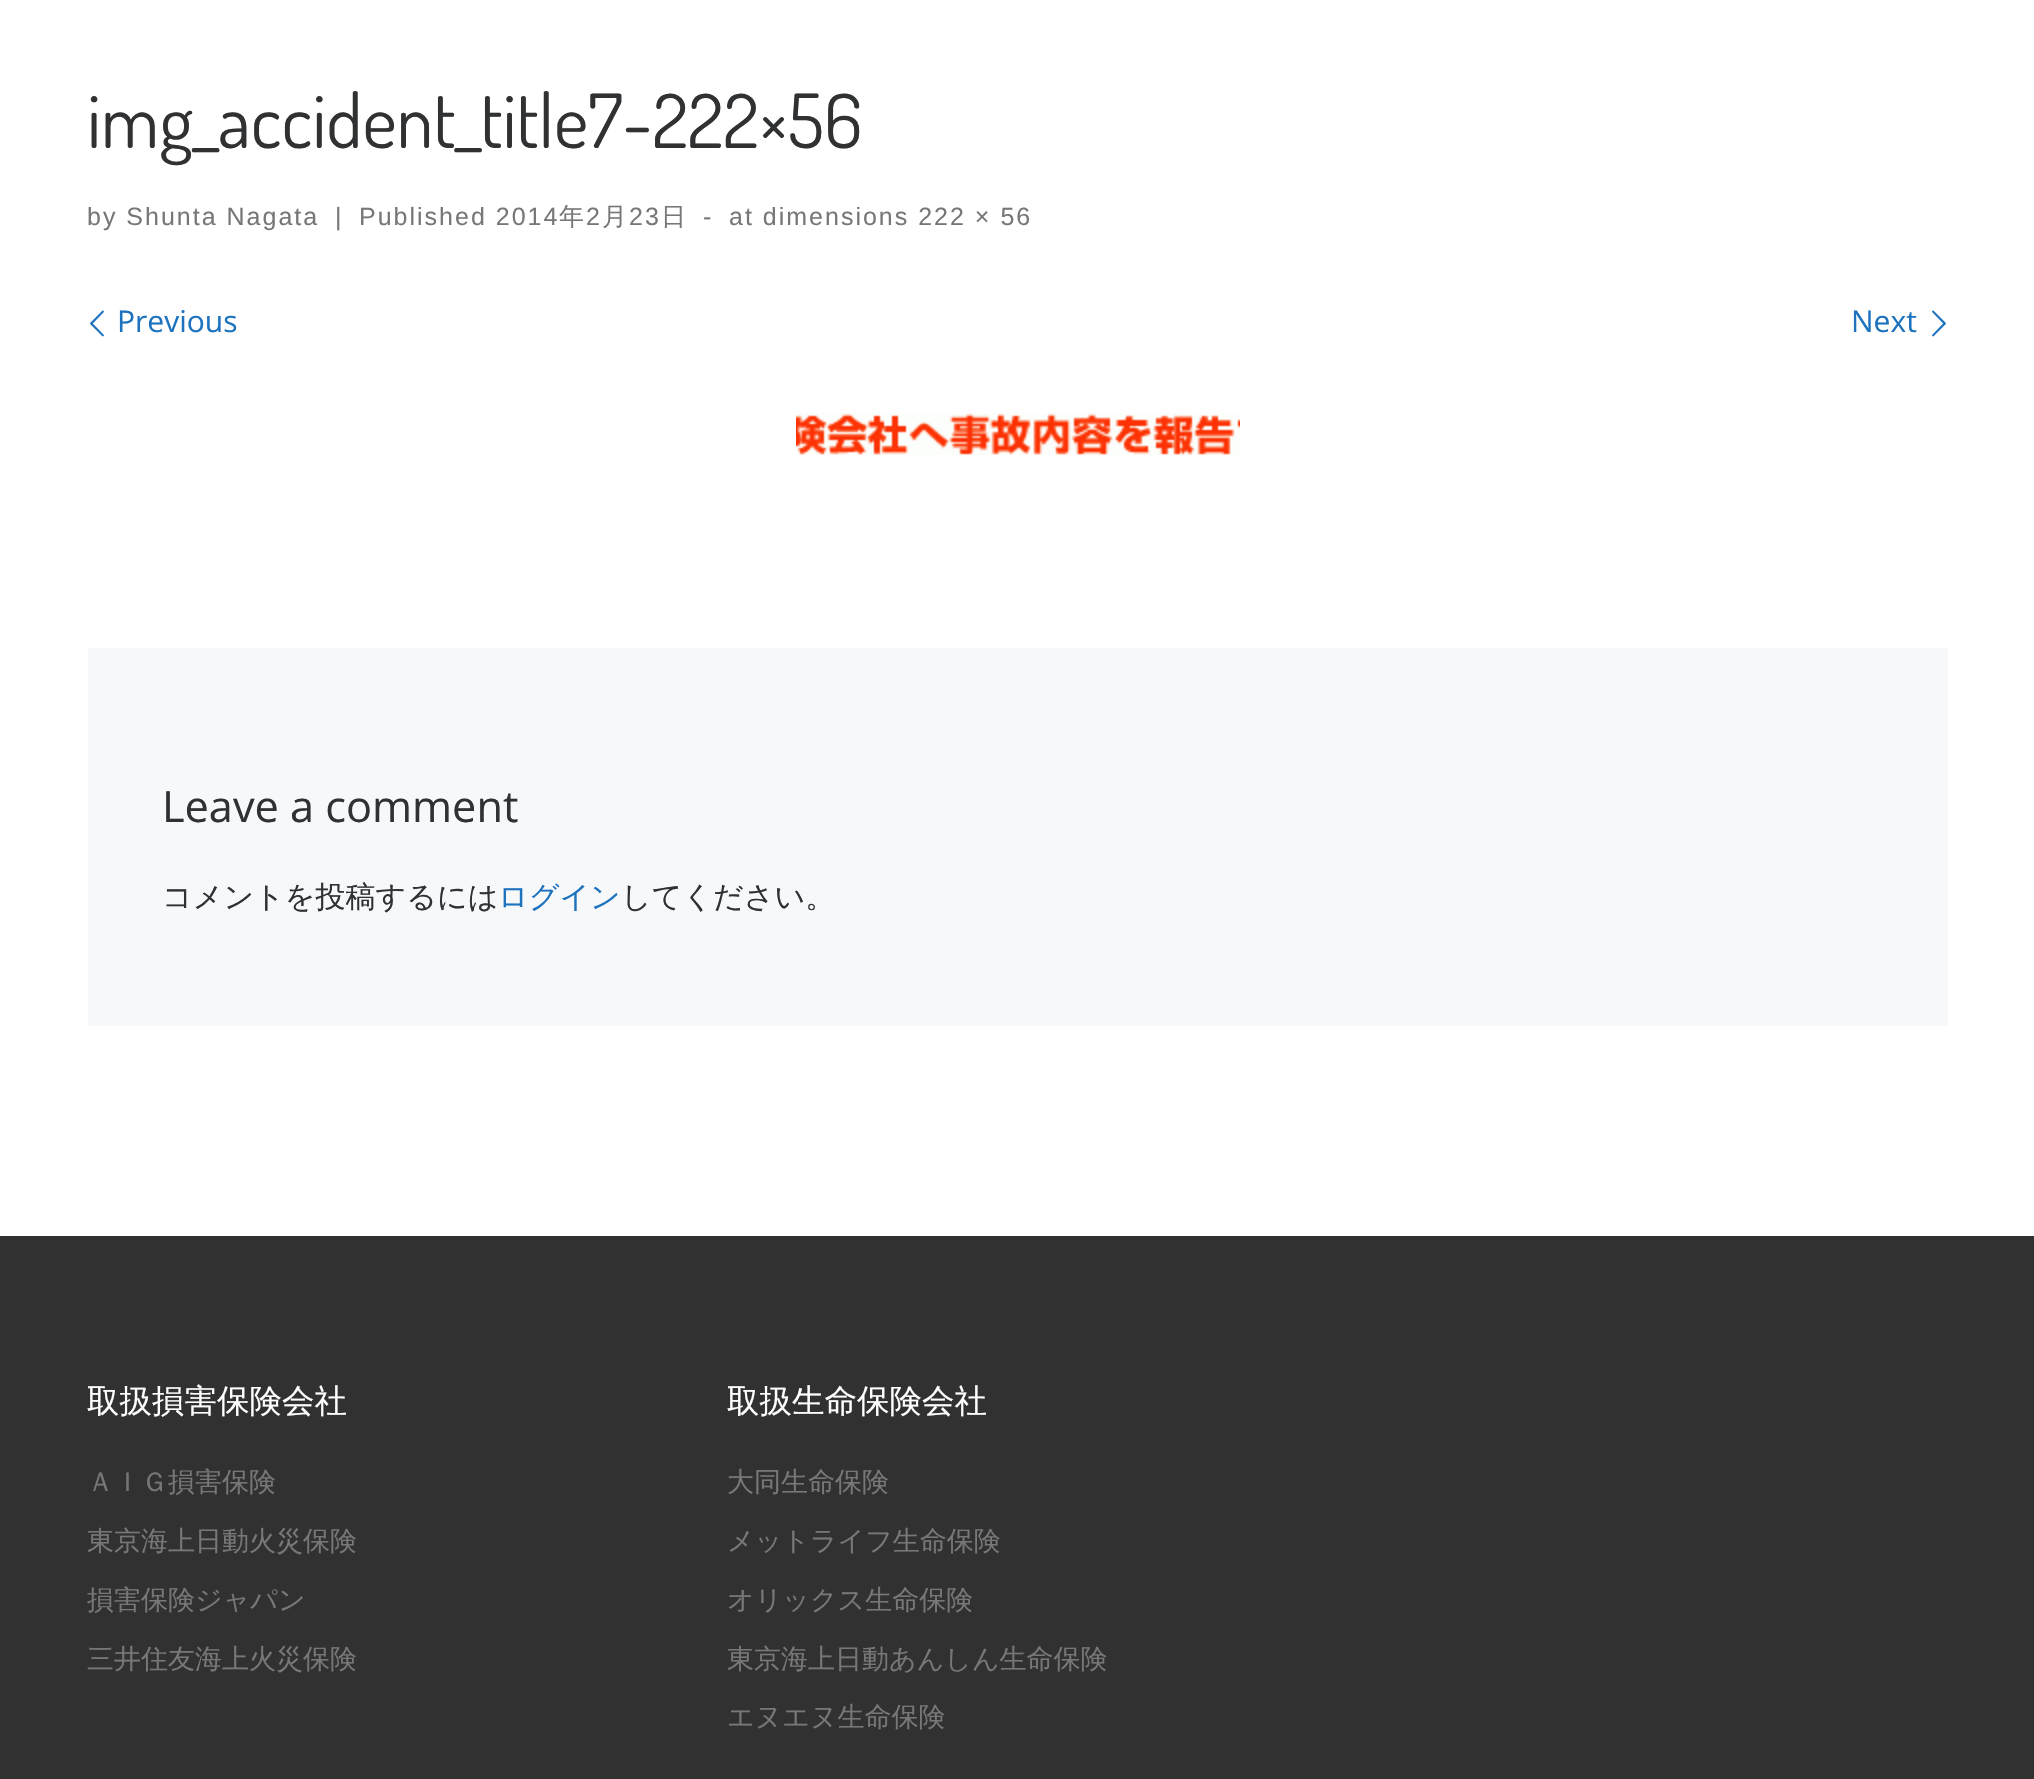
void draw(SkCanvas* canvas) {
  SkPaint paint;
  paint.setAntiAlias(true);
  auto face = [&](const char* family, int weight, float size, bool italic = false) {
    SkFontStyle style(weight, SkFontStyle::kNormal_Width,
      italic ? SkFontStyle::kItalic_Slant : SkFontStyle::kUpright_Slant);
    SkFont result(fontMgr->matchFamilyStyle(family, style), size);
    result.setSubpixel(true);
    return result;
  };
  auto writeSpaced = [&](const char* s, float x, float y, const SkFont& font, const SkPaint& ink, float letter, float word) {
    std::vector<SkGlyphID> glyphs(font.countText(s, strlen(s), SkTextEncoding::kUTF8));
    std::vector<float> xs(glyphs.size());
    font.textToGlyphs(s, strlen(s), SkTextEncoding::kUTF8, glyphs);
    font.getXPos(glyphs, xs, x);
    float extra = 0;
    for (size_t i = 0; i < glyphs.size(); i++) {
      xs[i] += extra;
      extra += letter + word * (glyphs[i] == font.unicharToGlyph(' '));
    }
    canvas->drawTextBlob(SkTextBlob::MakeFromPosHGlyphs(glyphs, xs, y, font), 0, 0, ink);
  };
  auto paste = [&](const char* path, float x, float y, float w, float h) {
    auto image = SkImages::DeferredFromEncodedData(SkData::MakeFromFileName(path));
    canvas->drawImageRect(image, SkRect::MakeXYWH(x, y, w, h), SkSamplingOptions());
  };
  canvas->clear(0xffffffff);
  paste("img/1.png", 90, 310, 14, 27);
  paste("img/2.png", 1932, 310, 14, 27);
  paste("img/3.png", 796, 413, 444, 42);
  paint.setColor(0xfff7f8f9);
  canvas->drawRect(SkRect::MakeXYWH(88, 648, 1860, 378), paint);
  paint.setColor(0xff313131);
  canvas->drawRect(SkRect::MakeXYWH(0, 1236, 2034, 543), paint);
  auto f0 = face("Dosis", 400, 74.6f);
  paint.setColor(0xff303133);
  canvas->drawString("img_accident_title7-222×56", 87, 148, f0, paint);
  auto f1 = face("Liberation Sans", 400, 25);
  paint.setColor(0xff777777);
  {
    const struct { const char* s; float x, y; } items[] = {
      {"by Shunta Nagata", 87, 225},
      {"|", 335, 225},
      {"Published 2014", 359, 225},
    };
    for (auto [s, x, y] : items) {
      writeSpaced(s, x, y, f1, paint, 2, 0);
    }
  }
  auto f2 = face("WenQuanYi Zen Hei", 500, 25);
  writeSpaced("年", 559, 225, f2, paint, 2, 0);
  writeSpaced("2", 586, 225, f1, paint, 2, 0);
  writeSpaced("月", 602, 225, f2, paint, 2, 0);
  writeSpaced("23", 629, 225, f1, paint, 2, 0);
  writeSpaced("日", 661, 225, f2, paint, 2, 0);
  writeSpaced("-", 703, 225, f1, paint, 2, 0);
  writeSpaced("at dimensions 222 × 56", 729, 225, f1, paint, 2, 0);
  auto f3 = face("Open Sans", 400, 30);
  paint.setColor(0xff1e73be);
  canvas->drawString("Previous", 117, 332, f3, paint);
  canvas->drawString("Next", 1851, 332, f3, paint);
  auto f4 = face("Open Sans", 400, 43.25f);
  paint.setColor(0xff303133);
  canvas->drawString("Leave a comment", 162, 822, f4, paint);
  auto f5 = face("WenQuanYi Zen Hei", 500, 30);
  canvas->drawString("コメントを投稿するには", 162, 907, f5, paint);
  paint.setColor(0xff1e73be);
  canvas->drawString("ログイン", 498, 907, f5, paint);
  paint.setColor(0xff303133);
  canvas->drawString("してください。", 621, 907, f5, paint);
  auto f6 = face("WenQuanYi Zen Hei", 500, 32.5f);
  paint.setColor(0xffffffff);
  canvas->drawString("取扱損害保険会社", 87, 1412, f6, paint);
  auto f7 = face("WenQuanYi Zen Hei", 500, 27);
  paint.setColor(0xff777777);
  {
    const struct { const char* s; float x, y; } items[] = {
      {"ＡＩＧ損害保険", 87, 1491},
      {"東京海上日動火災保険", 87, 1550},
      {"損害保険ジャパン", 87, 1609},
      {"三井住友海上火災保険", 87, 1668},
    };
    for (auto [s, x, y] : items) {
      canvas->drawString(s, x, y, f7, paint);
    }
  }
  paint.setColor(0xffffffff);
  canvas->drawString("取扱生命保険会社", 727, 1412, f6, paint);
  paint.setColor(0xff777777);
  {
    const struct { const char* s; float x, y; } items[] = {
      {"大同生命保険", 727, 1491},
      {"メットライフ生命保険", 727, 1550},
      {"オリックス生命保険", 727, 1609},
      {"東京海上日動あんしん生命保険", 727, 1668},
      {"エヌエヌ生命保険", 727, 1726},
    };
    for (auto [s, x, y] : items) {
      canvas->drawString(s, x, y, f7, paint);
    }
  }
}
